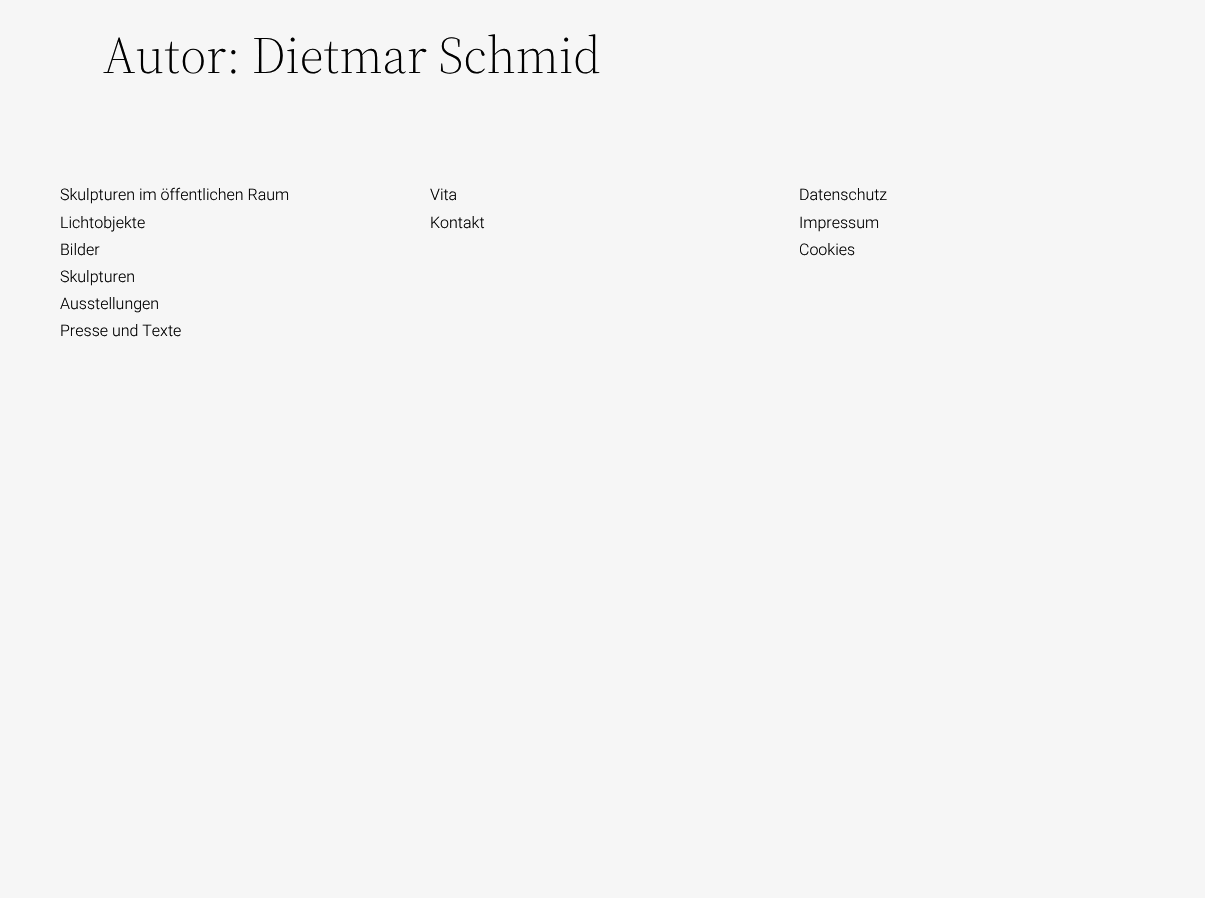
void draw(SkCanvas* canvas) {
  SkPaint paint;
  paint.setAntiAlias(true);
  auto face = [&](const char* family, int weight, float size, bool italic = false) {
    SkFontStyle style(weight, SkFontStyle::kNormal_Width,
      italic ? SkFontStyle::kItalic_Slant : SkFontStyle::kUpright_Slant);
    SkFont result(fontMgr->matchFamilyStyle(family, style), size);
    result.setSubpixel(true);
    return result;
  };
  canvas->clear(0xfff6f6f6);
  auto f0 = face("Source Serif 4", 300, 52);
  paint.setColor(0xff000000);
  canvas->drawString("Autor: Dietmar Schmid", 103, 73, f0, paint);
  auto f1 = face("Roboto", 300, 16);
  {
    const struct { const char* s; float x, y; } items[] = {
      {"Skulpturen im öffentlichen Raum", 60, 200},
      {"Lichtobjekte", 60, 228},
      {"Bilder", 60, 255},
      {"Skulpturen", 60, 282},
      {"Ausstellungen", 60, 309},
      {"Presse und Texte", 60, 336},
      {"Vita", 430, 200},
      {"Kontakt", 430, 228},
      {"Datenschutz", 799, 200},
      {"Impressum", 799, 228},
      {"Cookies", 799, 255},
    };
    for (auto [s, x, y] : items) {
      canvas->drawString(s, x, y, f1, paint);
    }
  }
}
